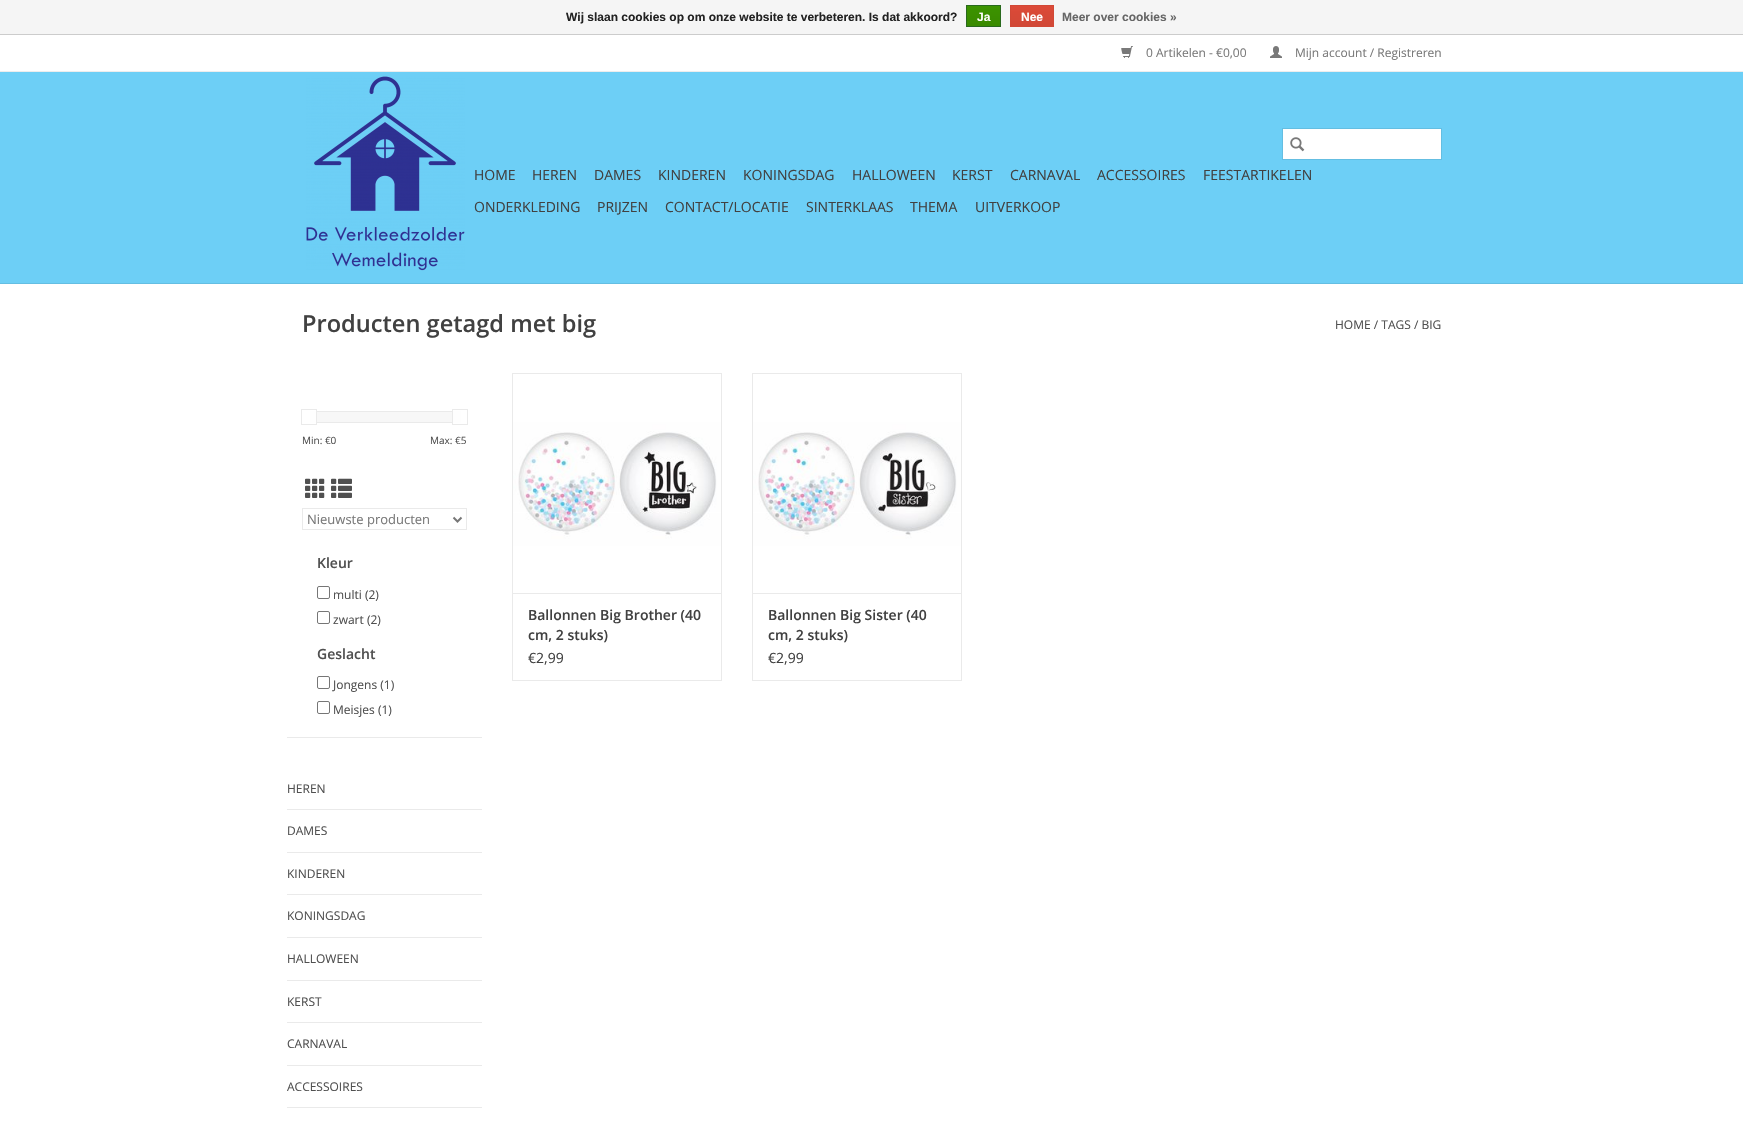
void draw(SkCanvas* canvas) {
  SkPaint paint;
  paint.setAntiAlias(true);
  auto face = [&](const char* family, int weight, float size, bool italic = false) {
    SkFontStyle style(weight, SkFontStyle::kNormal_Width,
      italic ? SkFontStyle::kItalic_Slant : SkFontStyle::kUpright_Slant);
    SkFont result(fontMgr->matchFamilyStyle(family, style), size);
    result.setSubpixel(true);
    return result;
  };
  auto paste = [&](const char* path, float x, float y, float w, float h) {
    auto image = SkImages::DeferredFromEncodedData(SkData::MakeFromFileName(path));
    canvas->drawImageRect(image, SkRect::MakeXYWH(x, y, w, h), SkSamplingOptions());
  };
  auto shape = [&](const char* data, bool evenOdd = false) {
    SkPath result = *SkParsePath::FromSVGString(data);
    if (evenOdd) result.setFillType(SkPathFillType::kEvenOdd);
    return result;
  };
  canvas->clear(0xffffffff);
  paint.setColor(0xfff5f5f5);
  canvas->drawRect(SkRect::MakeXYWH(0, 0, 1743, 34), paint);
  paint.setColor(0xffcccccc);
  canvas->drawRect(SkRect::MakeXYWH(0, 34, 1743, 1), paint);
  {
    const SkColor colors[] = {0xff3c9300, 0xff398a00};
    const float stops[] = {0, 1};
    const SkPoint ends[] = {{984, 6}, {984, 26}};
    paint.setShader(SkGradientShader::MakeLinear(ends, colors, stops, 2, SkTileMode::kClamp));
    paint.setAlpha(255);
  }
  canvas->drawRect(SkRect::MakeXYWH(967, 6, 33, 20), paint);
  paint.setStroke(true);
  paint.setStrokeWidth(1);
  paint.setShader(nullptr);
  paint.setColor(0xff29691d);
  canvas->drawRect(SkRect::MakeXYWH(966.5f, 5.5f, 34, 21), paint);
  paint.setStroke(false);
  {
    const SkColor colors[] = {0xffdc4a38, 0xffd14836};
    const float stops[] = {0, 1};
    const SkPoint ends[] = {{1032, 6}, {1032, 26}};
    paint.setShader(SkGradientShader::MakeLinear(ends, colors, stops, 2, SkTileMode::kClamp));
    paint.setAlpha(255);
  }
  canvas->drawRect(SkRect::MakeXYWH(1011, 6, 42, 20), paint);
  paint.setStroke(true);
  paint.setShader(nullptr);
  paint.setColor(0xffd14836);
  canvas->drawRect(SkRect::MakeXYWH(1010.5f, 5.5f, 43, 21), paint);
  paint.setStroke(false);
  {
    const struct { float x, y, w, h; SkColor color; } items[] = {
      {0, 72, 1743, 211, 0xff6dcff6},
      {0, 283, 1743, 1, 0xff64bee2},
      {0, 71, 1743, 1, 0xffededed},
    };
    for (auto [x, y, w, h, color] : items) {
      paint.setColor(color);
      canvas->drawRect(SkRect::MakeXYWH(x, y, w, h), paint);
    }
  }
  paste("img/1.png", 1121, 46, 12, 12);
  paste("img/2.png", 1270, 46, 12, 12);
  paste("img/3.png", 306, 76, 159, 195);
  paint.setColor(0xffffffff);
  canvas->drawRect(SkRect::MakeXYWH(1282.5f, 128.5f, 159, 31), paint);
  paint.setStroke(true);
  paint.setColor(0xff64bee2);
  canvas->drawRect(SkRect::MakeXYWH(1282.5f, 128.5f, 159, 31), paint);
  paste("img/4.png", 1290, 137, 15, 15);
  paint.setStroke(false);
  paint.setColor(0xffeaeaea);
  canvas->drawRect(SkRect::MakeXYWH(287, 737, 195, 1), paint);
  paint.setColor(0xfff7f7f7);
  canvas->drawRect(SkRect::MakeXYWH(317, 412, 135, 10), paint);
  paint.setStroke(true);
  paint.setColor(0xffeaeaea);
  canvas->drawRect(SkRect::MakeXYWH(310.5f, 411.5f, 150, 11), paint);
  paint.setStroke(false);
  paint.setColor(0xfffefefe);
  canvas->drawRect(SkRect::MakeXYWH(310, 411, 6, 12), paint);
  paint.setStroke(true);
  paint.setColor(0xffeaeaea);
  canvas->drawRect(SkRect::MakeXYWH(301.5f, 409.5f, 15, 15), paint);
  paint.setStroke(false);
  paint.setColor(0xfffefefe);
  canvas->drawRect(SkRect::MakeXYWH(453, 411, 8, 12), paint);
  paint.setStroke(true);
  paint.setColor(0xffeaeaea);
  canvas->drawRect(SkRect::MakeXYWH(452.5f, 409.5f, 15, 15), paint);
  paste("img/5.png", 305, 478, 20, 20);
  paste("img/6.png", 331, 478, 21, 20);
  canvas->drawRect(SkRect::MakeXYWH(302.5f, 508.5f, 164, 21), paint);
  paint.setStrokeWidth(2);
  paint.setColor(0xff777777);
  canvas->drawPath(shape("M453.5 517.5L457.5 521.5L461.5 517.5"), paint);
  paint.setStrokeWidth(1);
  paint.setColor(0xff767676);
  canvas->drawRoundRect(SkRect::MakeXYWH(317.5f, 586.5f, 12, 12), 1.5f, 1.5f, paint);
  canvas->drawRoundRect(SkRect::MakeXYWH(317.5f, 611.5f, 12, 12), 1.5f, 1.5f, paint);
  canvas->drawRoundRect(SkRect::MakeXYWH(317.5f, 676.5f, 12, 12), 1.5f, 1.5f, paint);
  canvas->drawRoundRect(SkRect::MakeXYWH(317.5f, 701.5f, 12, 12), 1.5f, 1.5f, paint);
  paint.setStroke(false);
  {
    const struct { float x, y, w, h; SkColor color; } items[] = {
      {287, 809, 195, 1, 0xffeaeaea},
      {287, 852, 195, 1, 0xffeaeaea},
      {287, 894, 195, 1, 0xffeaeaea},
      {287, 937, 195, 1, 0xffeaeaea},
      {287, 980, 195, 1, 0xffeaeaea},
      {287, 1022, 195, 1, 0xffeaeaea},
      {287, 1065, 195, 1, 0xffeaeaea},
      {287, 1107, 195, 1, 0xffeaeaea},
      {512, 373, 210, 1, 0xffeaeaea},
      {721, 373, 1, 220, 0xffeaeaea},
      {512, 373, 1, 220, 0xffeaeaea},
    };
    for (auto [x, y, w, h, color] : items) {
      paint.setColor(color);
      canvas->drawRect(SkRect::MakeXYWH(x, y, w, h), paint);
    }
  }
  paste("img/7.png", 513, 374, 208, 219);
  paint.setStroke(true);
  canvas->drawRect(SkRect::MakeXYWH(512.5f, 593.5f, 209, 87), paint);
  paint.setStroke(false);
  {
    const struct { float x, y, w, h; SkColor color; } items[] = {
      {752, 373, 210, 1, 0xffeaeaea},
      {961, 373, 1, 220, 0xffeaeaea},
      {752, 373, 1, 220, 0xffeaeaea},
    };
    for (auto [x, y, w, h, color] : items) {
      paint.setColor(color);
      canvas->drawRect(SkRect::MakeXYWH(x, y, w, h), paint);
    }
  }
  paste("img/8.png", 753, 374, 208, 219);
  paint.setStroke(true);
  canvas->drawRect(SkRect::MakeXYWH(752.5f, 593.5f, 209, 87), paint);
  auto f0 = face("Liberation Sans", 700, 12);
  paint.setStroke(false);
  paint.setColor(0xff222222);
  canvas->drawString("Wij slaan cookies op om onze website te verbeteren. Is dat akkoord?", 566, 21, f0, paint);
  paint.setColor(0xffffffff);
  canvas->drawString("Ja", 977, 21, f0, paint);
  canvas->drawString("Nee", 1021, 21, f0, paint);
  paint.setColor(0xff666666);
  canvas->drawString("Meer over cookies »", 1062, 21, f0, paint);
  auto f1 = face("Open Sans", 400, 12);
  paint.setColor(0xff797979);
  canvas->drawString("0 Artikelen - €0,00", 1146, 57, f1, paint);
  canvas->drawString("Mijn account / Registreren", 1295, 57, f1, paint);
  auto f2 = face("Open Sans", 400, 14);
  paint.setColor(0xff414141);
  {
    const struct { const char* s; float x, y; } items[] = {
      {"HOME", 474, 180},
      {"HEREN", 532, 180},
      {"DAMES", 594, 180},
      {"KINDEREN", 658, 180},
      {"KONINGSDAG", 743, 180},
      {"HALLOWEEN", 852, 180},
      {"KERST", 952, 180},
      {"CARNAVAL", 1010, 180},
      {"ACCESSOIRES", 1097, 180},
      {"FEESTARTIKELEN", 1203, 180},
      {"ONDERKLEDING", 474, 212},
      {"PRIJZEN", 597, 212},
      {"CONTACT/LOCATIE", 665, 212},
      {"SINTERKLAAS", 806, 212},
      {"THEMA", 910, 212},
      {"UITVERKOOP", 975, 212},
    };
    for (auto [s, x, y] : items) {
      canvas->drawString(s, x, y, f2, paint);
    }
  }
  auto f3 = face("Open Sans", 600, 23.6f);
  canvas->drawString("Producten getagd met big", 302, 332, f3, paint);
  paint.setColor(0xff505050);
  canvas->drawString("HOME / TAGS / BIG", 1335, 329, f1, paint);
  auto f4 = face("Open Sans", 400, 10);
  canvas->drawString("Min: €0", 302, 444, f4, paint);
  canvas->drawString("Max: €5", 430, 444, f4, paint);
  auto f5 = face("Open Sans", 400, 13);
  paint.setColor(0xff797979);
  canvas->drawString("Nieuwste producten", 307, 524, f5, paint);
  auto f6 = face("Open Sans", 600, 14);
  paint.setColor(0xff505050);
  canvas->drawString("Kleur", 317, 568, f6, paint);
  canvas->drawString("multi (2)", 333, 599, f1, paint);
  canvas->drawString("zwart (2)", 333, 624, f1, paint);
  canvas->drawString("Geslacht", 317, 659, f6, paint);
  {
    const struct { const char* s; float x, y; } items[] = {
      {"Jongens (1)", 333, 689},
      {"Meisjes (1)", 333, 714},
      {"HEREN", 287, 793},
      {"DAMES", 287, 835},
      {"KINDEREN", 287, 878},
      {"KONINGSDAG", 287, 920},
      {"HALLOWEEN", 287, 963},
      {"KERST", 287, 1006},
      {"CARNAVAL", 287, 1048},
      {"ACCESSOIRES", 287, 1091},
    };
    for (auto [s, x, y] : items) {
      canvas->drawString(s, x, y, f1, paint);
    }
  }
  paint.setColor(0xff414141);
  canvas->drawString("Ballonnen Big Brother (40", 528, 620, f6, paint);
  canvas->drawString("cm, 2 stuks)", 528, 640, f6, paint);
  canvas->drawString("€2,99", 528, 663, f2, paint);
  canvas->drawString("Ballonnen Big Sister (40", 768, 620, f6, paint);
  canvas->drawString("cm, 2 stuks)", 768, 640, f6, paint);
  canvas->drawString("€2,99", 768, 663, f2, paint);
}
